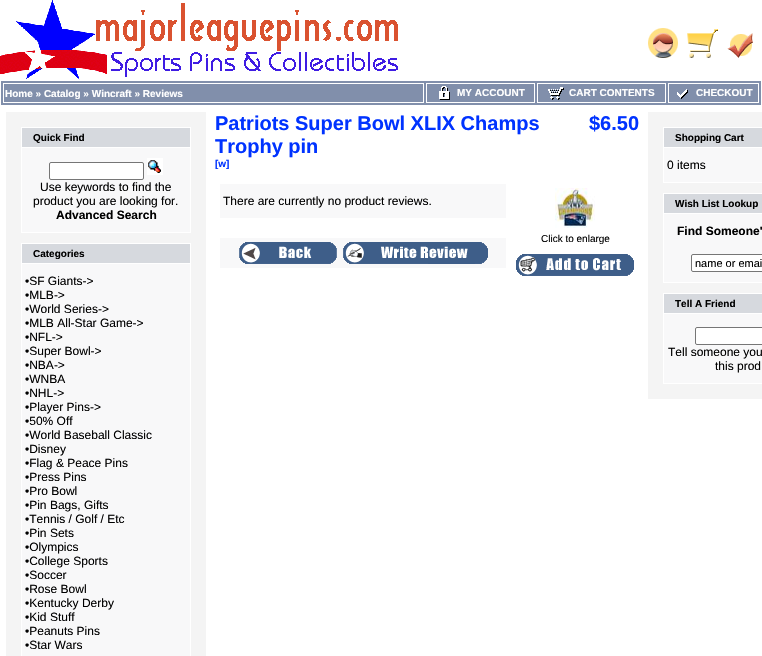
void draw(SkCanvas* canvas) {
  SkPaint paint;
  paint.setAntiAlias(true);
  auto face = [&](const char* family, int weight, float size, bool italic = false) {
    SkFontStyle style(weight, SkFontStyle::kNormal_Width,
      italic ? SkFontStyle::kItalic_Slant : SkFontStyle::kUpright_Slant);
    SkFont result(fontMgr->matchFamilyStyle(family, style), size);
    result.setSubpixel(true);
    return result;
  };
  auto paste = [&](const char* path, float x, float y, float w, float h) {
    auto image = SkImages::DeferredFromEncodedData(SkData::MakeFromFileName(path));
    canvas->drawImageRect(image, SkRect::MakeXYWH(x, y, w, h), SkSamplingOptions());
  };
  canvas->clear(0xffffffff);
  paste("img/1.png", 0, 0, 398, 80);
  paste("img/2.png", 648, 28, 30, 30);
  paste("img/3.png", 687, 29, 31, 29);
  paste("img/4.png", 727, 33, 26, 25);
  paint.setColor(0xff818fab);
  canvas->drawRect(SkRect::MakeXYWH(1, 81, 760, 24), paint);
  paint.setStroke(true);
  paint.setStrokeWidth(1);
  paint.setColor(0xffffffff);
  canvas->drawRect(SkRect::MakeXYWH(3.5f, 83.5f, 420, 19), paint);
  canvas->drawRect(SkRect::MakeXYWH(426.5f, 83.5f, 108, 19), paint);
  paste("img/5.png", 439, 86, 11, 14);
  canvas->drawRect(SkRect::MakeXYWH(537.5f, 83.5f, 128, 19), paint);
  paste("img/6.png", 548, 87, 16, 13);
  canvas->drawRect(SkRect::MakeXYWH(668.5f, 83.5f, 90, 19), paint);
  paste("img/7.png", 677, 89, 11, 10);
  paint.setStroke(false);
  {
    const struct { float x, y, w, h; SkColor color; } items[] = {
      {6, 112, 200, 544, 0xfff4f4f4},
      {22, 128, 168, 19, 0xffd6d9de},
      {21, 127, 170, 1, 0xffffffff},
      {21, 127, 1, 20, 0xffffffff},
      {190, 127, 1, 20, 0xffffffff},
      {21, 147, 170, 86, 0xffffffff},
      {22, 148, 168, 84, 0xfff8f8f9},
    };
    for (auto [x, y, w, h, color] : items) {
      paint.setColor(color);
      canvas->drawRect(SkRect::MakeXYWH(x, y, w, h), paint);
    }
  }
  paint.setColor(0xffffffff);
  canvas->drawRoundRect(SkRect::MakeXYWH(49.5f, 162.5f, 94, 17), 1.5f, 1.5f, paint);
  paint.setStroke(true);
  paint.setColor(0xff767676);
  canvas->drawRoundRect(SkRect::MakeXYWH(49.5f, 162.5f, 94, 17), 1.5f, 1.5f, paint);
  paste("img/8.png", 147, 158, 16, 17);
  paint.setStroke(false);
  {
    const struct { float x, y, w, h; SkColor color; } items[] = {
      {22, 244, 168, 19, 0xffd6d9de},
      {21, 243, 170, 1, 0xffffffff},
      {21, 243, 1, 20, 0xffffffff},
      {190, 243, 1, 20, 0xffffffff},
      {21, 263, 170, 393, 0xffffffff},
      {22, 264, 168, 392, 0xfff8f8f9},
      {220, 184, 286, 34, 0xfff8f8f9},
      {220, 238, 286, 30, 0xfff8f8f9},
    };
    for (auto [x, y, w, h, color] : items) {
      paint.setColor(color);
      canvas->drawRect(SkRect::MakeXYWH(x, y, w, h), paint);
    }
  }
  paste("img/9.png", 239, 242, 98, 22);
  paste("img/10.png", 343, 242, 145, 22);
  paste("img/11.png", 555, 188, 40, 40);
  paste("img/12.png", 516, 254, 118, 22);
  {
    const struct { float x, y, w, h; SkColor color; } items[] = {
      {648, 112, 114, 287, 0xfff4f4f4},
      {664, 128, 98, 19, 0xffd6d9de},
      {663, 127, 99, 1, 0xffffffff},
      {663, 127, 1, 20, 0xffffffff},
      {663, 147, 99, 36, 0xffffffff},
      {664, 148, 98, 34, 0xfff8f8f9},
      {664, 194, 98, 19, 0xffd6d9de},
      {663, 193, 99, 1, 0xffffffff},
      {663, 193, 1, 20, 0xffffffff},
      {663, 213, 99, 70, 0xffffffff},
      {664, 214, 98, 68, 0xfff8f8f9},
    };
    for (auto [x, y, w, h, color] : items) {
      paint.setColor(color);
      canvas->drawRect(SkRect::MakeXYWH(x, y, w, h), paint);
    }
  }
  paint.setColor(0xffffffff);
  canvas->drawRoundRect(SkRect::MakeXYWH(691.5f, 254.5f, 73, 17), 1.5f, 1.5f, paint);
  paint.setStroke(true);
  paint.setColor(0xff767676);
  canvas->drawRoundRect(SkRect::MakeXYWH(691.5f, 254.5f, 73, 17), 1.5f, 1.5f, paint);
  paint.setStroke(false);
  {
    const struct { float x, y, w, h; SkColor color; } items[] = {
      {664, 294, 98, 19, 0xffd6d9de},
      {663, 293, 99, 1, 0xffffffff},
      {663, 293, 1, 20, 0xffffffff},
      {663, 313, 99, 71, 0xffffffff},
      {664, 314, 98, 69, 0xfff8f8f9},
    };
    for (auto [x, y, w, h, color] : items) {
      paint.setColor(color);
      canvas->drawRect(SkRect::MakeXYWH(x, y, w, h), paint);
    }
  }
  paint.setColor(0xffffffff);
  canvas->drawRoundRect(SkRect::MakeXYWH(695.5f, 327.5f, 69, 17), 1.5f, 1.5f, paint);
  paint.setStroke(true);
  paint.setColor(0xff767676);
  canvas->drawRoundRect(SkRect::MakeXYWH(695.5f, 327.5f, 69, 17), 1.5f, 1.5f, paint);
  auto f0 = face("Liberation Sans", 700, 10);
  paint.setStroke(false);
  paint.setColor(0xffffffff);
  {
    const struct { const char* s; float x, y; } items[] = {
      {"Home » Catalog » Wincraft » Reviews", 5, 97},
      {"MY ACCOUNT", 457, 96},
      {"CART CONTENTS", 569, 96},
      {"CHECKOUT", 696, 96},
    };
    for (auto [s, x, y] : items) {
      canvas->drawString(s, x, y, f0, paint);
    }
  }
  paint.setColor(0xff000000);
  canvas->drawString("Quick Find", 33, 141, f0, paint);
  auto f1 = face("Liberation Sans", 400, 12);
  canvas->drawString("Use keywords to find the", 40, 191, f1, paint);
  canvas->drawString("product you are looking for.", 33, 205, f1, paint);
  auto f2 = face("Liberation Sans", 700, 12);
  canvas->drawString("Advanced Search", 56, 219, f2, paint);
  canvas->drawString("Categories", 33, 257, f0, paint);
  {
    const struct { const char* s; float x, y; } items[] = {
      {"•SF Giants->", 25, 285},
      {"•MLB->", 25, 299},
      {"•World Series->", 25, 313},
      {"•MLB All-Star Game->", 25, 327},
      {"•NFL->", 25, 341},
      {"•Super Bowl->", 25, 355},
      {"•NBA->", 25, 369},
      {"•WNBA", 25, 383},
      {"•NHL->", 25, 397},
      {"•Player Pins->", 25, 411},
      {"•50% Off", 25, 425},
      {"•World Baseball Classic", 25, 439},
      {"•Disney", 25, 453},
      {"•Flag & Peace Pins", 25, 467},
      {"•Press Pins", 25, 481},
      {"•Pro Bowl", 25, 495},
      {"•Pin Bags, Gifts", 25, 509},
      {"•Tennis / Golf / Etc", 25, 523},
      {"•Pin Sets", 25, 537},
      {"•Olympics", 25, 551},
      {"•College Sports", 25, 565},
      {"•Soccer", 25, 579},
      {"•Rose Bowl", 25, 593},
      {"•Kentucky Derby", 25, 607},
      {"•Kid Stuff", 25, 621},
      {"•Peanuts Pins", 25, 635},
      {"•Star Wars", 25, 649},
    };
    for (auto [s, x, y] : items) {
      canvas->drawString(s, x, y, f1, paint);
    }
  }
  auto f3 = face("Liberation Sans", 700, 20);
  paint.setColor(0xff0033ff);
  canvas->drawString("Patriots Super Bowl XLIX Champs", 215, 130, f3, paint);
  canvas->drawString("Trophy pin", 215, 153, f3, paint);
  canvas->drawString("[w]", 215, 167, f0, paint);
  canvas->drawString("$6.50", 589, 130, f3, paint);
  paint.setColor(0xff000000);
  canvas->drawString("There are currently no product reviews.", 223, 205, f1, paint);
  auto f4 = face("Liberation Sans", 400, 10);
  canvas->drawString("Click to enlarge", 541, 242, f4, paint);
  canvas->drawString("Shopping Cart", 675, 141, f0, paint);
  canvas->drawString("0 items", 667, 169, f1, paint);
  canvas->drawString("Wish List Lookup", 675, 207, f0, paint);
  canvas->drawString("Find Someone'", 677, 235, f2, paint);
  auto f5 = face("Liberation Sans", 400, 11);
  canvas->drawString("name or emai", 695, 267, f5, paint);
  canvas->drawString("Tell A Friend", 675, 307, f0, paint);
  canvas->drawString("Tell someone you", 668, 356, f1, paint);
  canvas->drawString("this prod", 715, 370, f1, paint);
}
